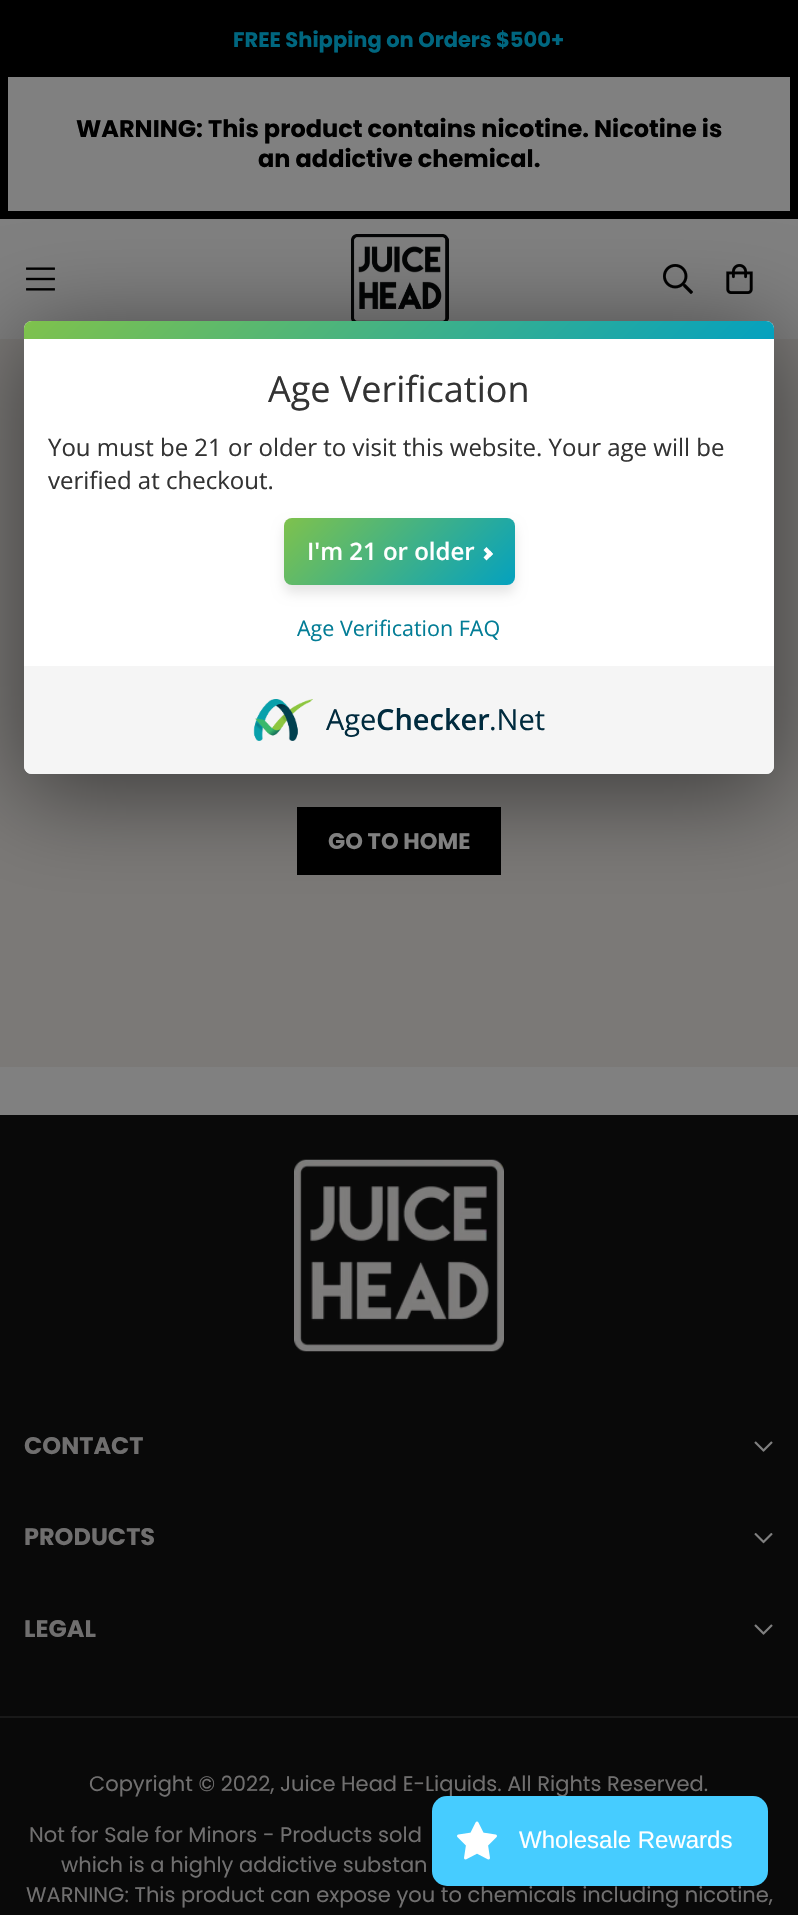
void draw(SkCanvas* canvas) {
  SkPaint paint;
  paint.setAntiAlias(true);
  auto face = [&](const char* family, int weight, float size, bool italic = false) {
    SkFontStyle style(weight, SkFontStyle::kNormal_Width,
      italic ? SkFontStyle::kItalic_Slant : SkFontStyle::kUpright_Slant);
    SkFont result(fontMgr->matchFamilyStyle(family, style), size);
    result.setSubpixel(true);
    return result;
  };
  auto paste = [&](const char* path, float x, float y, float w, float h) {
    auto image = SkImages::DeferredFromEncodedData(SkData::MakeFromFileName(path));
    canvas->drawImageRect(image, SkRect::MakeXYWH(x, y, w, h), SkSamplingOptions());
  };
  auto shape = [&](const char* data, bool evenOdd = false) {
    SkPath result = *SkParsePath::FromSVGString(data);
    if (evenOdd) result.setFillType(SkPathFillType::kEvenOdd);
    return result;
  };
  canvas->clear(0xff808080);
  paint.setColor(0xff000000);
  canvas->drawRect(SkRect::MakeXYWH(0, 0, 798, 69), paint);
  paint.setStroke(true);
  paint.setStrokeWidth(8);
  canvas->drawRect(SkRect::MakeXYWH(4, 73, 790, 142), paint);
  paste("img/1.png", 26, 267, 29, 24);
  paste("img/2.png", 351, 234, 98, 87);
  paste("img/3.png", 663, 264, 30, 30);
  paste("img/4.png", 726, 264, 27, 30);
  paint.setStroke(false);
  paint.setColor(0xff7b7977);
  canvas->drawRect(SkRect::MakeXYWH(0, 339, 798, 728), paint);
  paint.setColor(0xff000000);
  canvas->drawRect(SkRect::MakeXYWH(297, 807, 204, 68), paint);
  paint.setColor(0x80000000);
  paint.setMaskFilter(SkMaskFilter::MakeBlur(kNormal_SkBlurStyle, 48));
  canvas->drawRoundRect(SkRect::MakeXYWH(20, 332, 759, 462), 12, 12, paint);
  paint.setMaskFilter(nullptr);
  paint.setColor(0xffffffff);
  canvas->drawRoundRect(SkRect::MakeXYWH(24, 321, 750, 453), 8, 8, paint);
  {
    const SkColor colors[] = {0xff7fc24c, 0xff04a1bf};
    const float stops[] = {0, 1};
    const SkPoint ends[] = {{207, 138}, {591, 522}};
    paint.setShader(SkGradientShader::MakeLinear(ends, colors, stops, 2, SkTileMode::kClamp));
    paint.setAlpha(255);
  }
  canvas->drawPath(shape("M32 321H766C770.5 321 774 324.5 774 329V339H24V329C24 324.5 27.5 321 32 321Z"), paint);
  paint.setShader(nullptr);
  paint.setColor(0x1a000000);
  paint.setMaskFilter(SkMaskFilter::MakeBlur(kNormal_SkBlurStyle, 6));
  canvas->drawRoundRect(SkRect::MakeXYWH(284, 525, 231, 68), 8, 8, paint);
  paint.setMaskFilter(nullptr);
  {
    const SkColor colors[] = {0xff7fc24c, 0xff04a1bf};
    const float stops[] = {0, 1};
    const SkPoint ends[] = {{324, 477}, {474, 626}};
    paint.setShader(SkGradientShader::MakeLinear(ends, colors, stops, 2, SkTileMode::kClamp));
    paint.setAlpha(255);
  }
  canvas->drawRoundRect(SkRect::MakeXYWH(284, 518, 231, 67), 8, 8, paint);
  paint.setShader(nullptr);
  paint.setColor(0xffffffff);
  canvas->drawPath(shape("M483.5 550L486.5 547L493 554L490 557Z"), paint);
  canvas->drawPath(shape("M483.5 557.5L490 550.5L493 554L486.5 560.5Z"), paint);
  paint.setColor(0xfff5f5f5);
  canvas->drawPath(shape("M24 666H774V766C774 770.5 770.5 774 766 774H32C27.5 774 24 770.5 24 766Z"), paint);
  paste("img/5.png", 253, 699, 60, 42);
  paint.setColor(0xff090909);
  canvas->drawRect(SkRect::MakeXYWH(0, 1115, 798, 800), paint);
  paste("img/6.png", 294, 1159, 210, 193);
  paste("img/7.png", 754, 1441, 19, 11);
  paste("img/8.png", 754, 1533, 19, 11);
  paste("img/7.png", 754, 1624, 19, 11);
  paint.setColor(0xff191919);
  canvas->drawRect(SkRect::MakeXYWH(0, 1716, 798, 2), paint);
  auto f0 = face("Poppins", 700, 21);
  paint.setColor(0xff00667f);
  canvas->drawString("FREE Shipping on Orders $500+", 233, 47, f0, paint);
  auto f1 = face("Poppins", 700, 24);
  paint.setColor(0xff000000);
  canvas->drawString("WARNING: This product contains nicotine. Nicotine is", 76, 137, f1, paint);
  canvas->drawString("an addictive chemical.", 258, 167, f1, paint);
  auto f2 = face("Open Sans", 400, 36);
  paint.setColor(0xff333333);
  canvas->drawString("Age Verification", 268, 402, f2, paint);
  auto f3 = face("Open Sans", 400, 24);
  canvas->drawString("You must be 21 or older to visit this website. Your age will be", 48, 456, f3, paint);
  canvas->drawString("verified at checkout.", 48, 489, f3, paint);
  auto f4 = face("Open Sans", 600, 24);
  paint.setColor(0xffffffff);
  canvas->drawString("I'm 21 or older", 307, 560, f4, paint);
  auto f5 = face("Open Sans", 400, 21.5f);
  paint.setColor(0xff037d96);
  canvas->drawString("Age Verification FAQ", 297, 636, f5, paint);
  auto f6 = face("Open Sans", 400, 29);
  paint.setColor(0xff002b3e);
  canvas->drawString("Age", 326, 730, f6, paint);
  auto f7 = face("Open Sans", 600, 29);
  canvas->drawString("Checker", 376, 730, f7, paint);
  canvas->drawString(".Net", 489, 730, f6, paint);
  auto f8 = face("Poppins", 700, 22.5f);
  paint.setColor(0xff808080);
  canvas->drawString("GO TO HOME", 328, 849, f8, paint);
  paint.setColor(0xff706f6f);
  {
    const struct { const char* s; float x, y; } items[] = {
      {"CONTACT", 24, 1454},
      {"PRODUCTS", 24, 1545},
      {"LEGAL", 24, 1637},
    };
    for (auto [s, x, y] : items) {
      canvas->drawString(s, x, y, f1, paint);
    }
  }
  auto f9 = face("Poppins", 400, 21);
  {
    const struct { const char* s; float x, y; } items[] = {
      {"Copyright © 2022, Juice Head E-Liquids. All Rights Reserved.", 89, 1791},
      {"Not for Sale for Minors - Products sold", 29, 1842},
      {"which is a highly addictive substan", 61, 1872},
      {"WARNING: This product can expose you to chemicals including nicotine,", 26, 1902},
    };
    for (auto [s, x, y] : items) {
      canvas->drawString(s, x, y, f9, paint);
    }
  }
  paint.setColor(0xff46ccff);
  canvas->drawRoundRect(SkRect::MakeXYWH(432, 1796, 336, 90), 15, 15, paint);
  paste("img/9.png", 457, 1821, 40, 39);
  auto f10 = face("Liberation Sans", 400, 24);
  paint.setColor(0xffffffff);
  canvas->drawString("Wholesale Rewards", 519, 1848, f10, paint);
}
